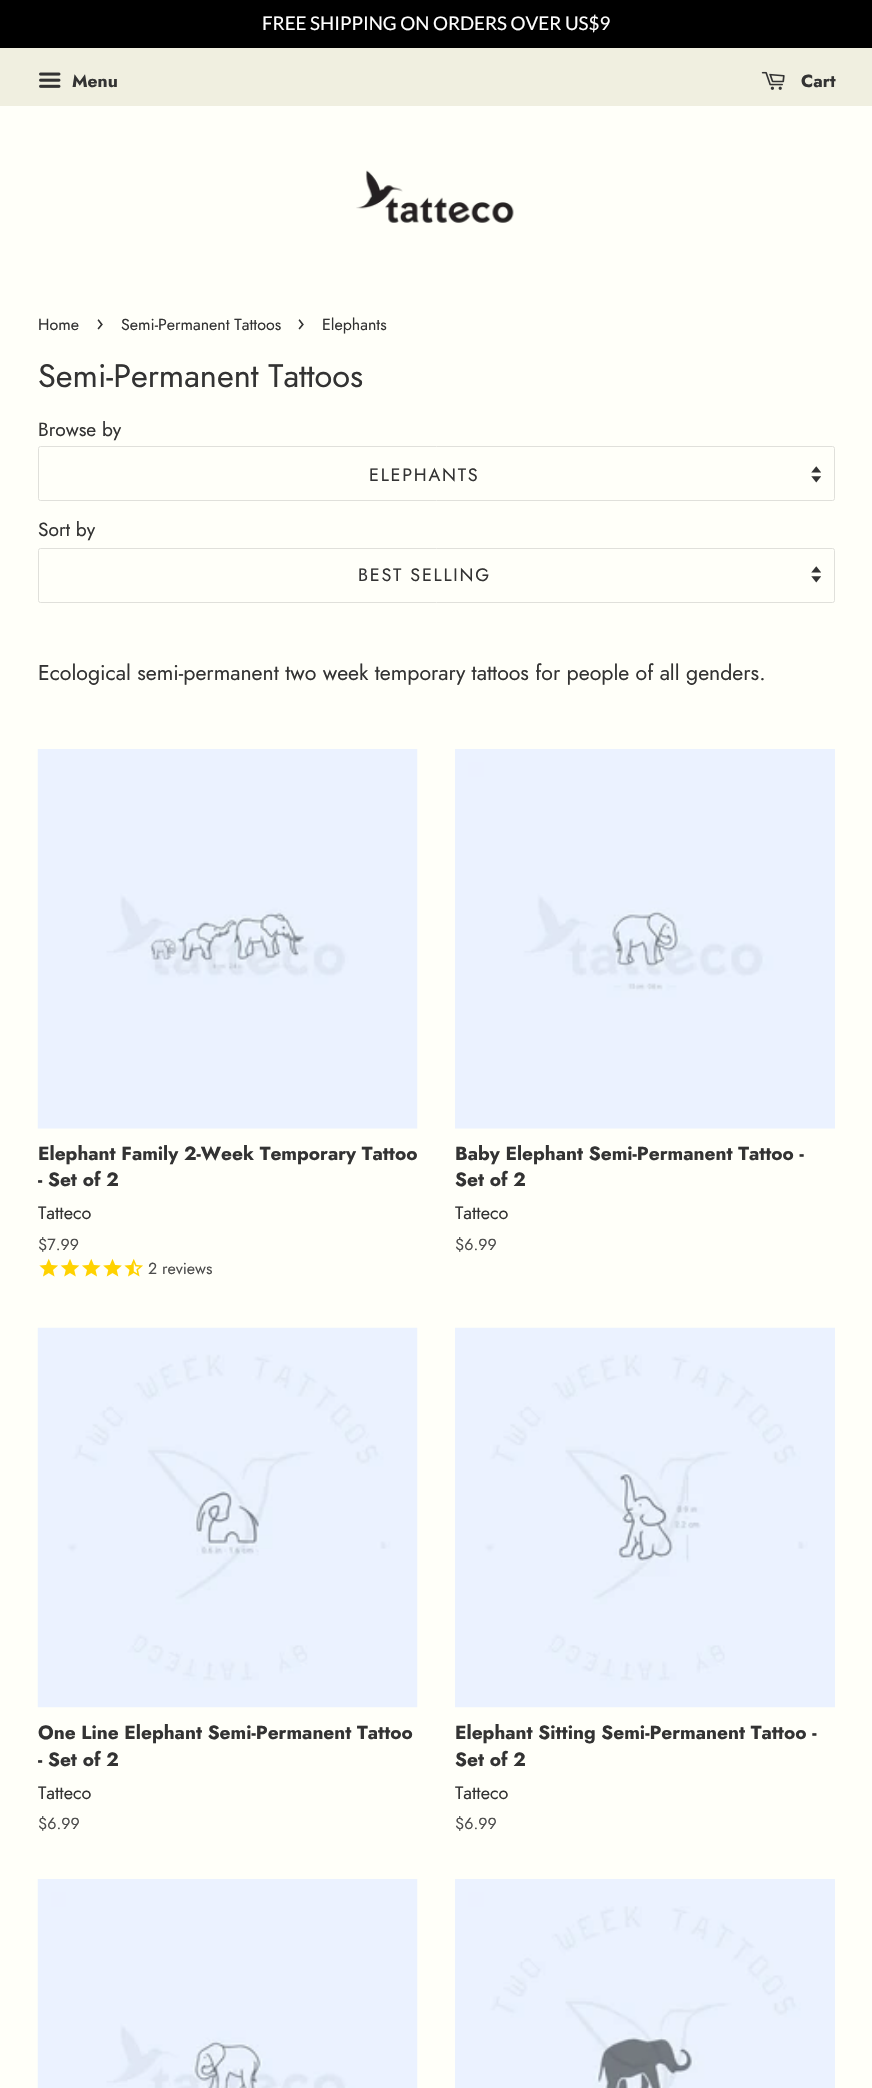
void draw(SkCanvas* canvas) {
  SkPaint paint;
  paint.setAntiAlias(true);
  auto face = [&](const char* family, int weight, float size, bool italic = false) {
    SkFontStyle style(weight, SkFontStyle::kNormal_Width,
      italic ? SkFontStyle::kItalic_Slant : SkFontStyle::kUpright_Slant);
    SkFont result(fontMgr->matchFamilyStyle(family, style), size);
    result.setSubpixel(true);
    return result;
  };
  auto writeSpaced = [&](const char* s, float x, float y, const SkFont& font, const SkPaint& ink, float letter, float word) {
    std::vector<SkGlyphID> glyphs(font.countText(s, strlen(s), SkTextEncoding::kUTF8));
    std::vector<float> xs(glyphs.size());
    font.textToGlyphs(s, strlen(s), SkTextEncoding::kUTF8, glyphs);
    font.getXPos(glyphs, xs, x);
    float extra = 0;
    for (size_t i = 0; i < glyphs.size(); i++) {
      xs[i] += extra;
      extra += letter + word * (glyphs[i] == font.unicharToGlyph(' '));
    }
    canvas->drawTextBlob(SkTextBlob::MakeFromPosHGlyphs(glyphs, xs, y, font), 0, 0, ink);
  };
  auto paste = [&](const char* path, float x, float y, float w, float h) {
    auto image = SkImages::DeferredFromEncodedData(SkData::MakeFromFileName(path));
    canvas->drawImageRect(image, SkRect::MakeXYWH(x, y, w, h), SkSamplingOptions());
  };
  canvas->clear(0xfffffff9);
  paint.setColor(0xff000000);
  canvas->drawRect(SkRect::MakeXYWH(0, 0, 872, 48), paint);
  paint.setColor(0xfff0efe0);
  canvas->drawRect(SkRect::MakeXYWH(0, 48, 872, 58), paint);
  paste("img/1.png", 39, 72, 22, 16);
  paste("img/2.png", 761, 71, 24, 19);
  paste("img/3.png", 356, 170, 158, 53);
  paste("img/4.png", 811, 466, 10, 17);
  paint.setStroke(true);
  paint.setStrokeWidth(1);
  paint.setColor(0xffe0e0db);
  canvas->drawRoundRect(SkRect::MakeXYWH(38.5f, 446.5f, 796, 54), 2, 2, paint);
  paste("img/4.png", 811, 566, 10, 17);
  canvas->drawRoundRect(SkRect::MakeXYWH(38.5f, 548.5f, 796, 54), 2, 2, paint);
  paste("img/5.png", 37, 749, 381, 380);
  paste("img/6.png", 39, 1258, 19, 19);
  paste("img/7.png", 60, 1259, 20, 18);
  paste("img/8.png", 82, 1258, 19, 19);
  paste("img/9.png", 103, 1258, 19, 19);
  paste("img/10.png", 124, 1258, 19, 19);
  paste("img/11.png", 455, 749, 380, 380);
  paste("img/12.png", 37, 1327, 381, 381);
  paste("img/13.png", 455, 1327, 380, 381);
  paste("img/14.png", 37, 1879, 381, 209);
  paste("img/15.png", 455, 1879, 380, 209);
  auto f0 = face("Lato", 400, 18.75f);
  paint.setStroke(false);
  paint.setColor(0xffffffff);
  canvas->drawString("FREE SHIPPING ON ORDERS OVER US$9", 262, 30, f0, paint);
  auto f1 = face("Jost", 700, 17.5f);
  paint.setColor(0xff333333);
  canvas->drawString("Menu", 72, 87, f1, paint);
  canvas->drawString("Cart", 801, 87, f1, paint);
  auto f2 = face("Jost", 400, 16);
  canvas->drawString("Home", 38, 330, f2, paint);
  auto f3 = face("Jost", 400, 22);
  canvas->drawString("›", 96, 330, f3, paint);
  canvas->drawString("Semi-Permanent Tattoos", 121, 330, f2, paint);
  canvas->drawString("›", 297, 330, f3, paint);
  canvas->drawString("Elephants", 322, 330, f2, paint);
  auto f4 = face("Jost", 400, 32.5f);
  canvas->drawString("Semi-Permanent Tattoos", 38, 387, f4, paint);
  auto f5 = face("Jost", 400, 19.1f);
  canvas->drawString("Browse by", 38, 436, f5, paint);
  auto f6 = face("Jost", 400, 18);
  writeSpaced("ELEPHANTS", 369, 481, f6, paint, 1.75f, 0);
  canvas->drawString("Sort by", 38, 536, f5, paint);
  writeSpaced("BEST SELLING", 358, 581, f6, paint, 1.75f, 0);
  auto f7 = face("Jost", 400, 21.25f);
  canvas->drawString("Ecological semi-permanent two week temporary tattoos for people of all genders.", 38, 680, f7, paint);
  auto f8 = face("Jost", 700, 19.1f);
  canvas->drawString("Elephant Family 2-Week Temporary Tattoo", 38, 1160, f8, paint);
  canvas->drawString("- Set of 2", 38, 1186, f8, paint);
  canvas->drawString("Tatteco", 38, 1219, f6, paint);
  paint.setColor(0xff4d4d4d);
  canvas->drawString("$7.99", 38, 1250, f2, paint);
  canvas->drawString("2 reviews", 148, 1274, f2, paint);
  paint.setColor(0xff333333);
  canvas->drawString("Baby Elephant Semi-Permanent Tattoo -", 455, 1160, f8, paint);
  canvas->drawString("Set of 2", 455, 1186, f8, paint);
  canvas->drawString("Tatteco", 455, 1219, f6, paint);
  paint.setColor(0xff4d4d4d);
  canvas->drawString("$6.99", 455, 1250, f2, paint);
  paint.setColor(0xff333333);
  canvas->drawString("One Line Elephant Semi-Permanent Tattoo", 38, 1739, f8, paint);
  canvas->drawString("- Set of 2", 38, 1766, f8, paint);
  canvas->drawString("Tatteco", 38, 1799, f6, paint);
  paint.setColor(0xff4d4d4d);
  canvas->drawString("$6.99", 38, 1829, f2, paint);
  paint.setColor(0xff333333);
  canvas->drawString("Elephant Sitting Semi-Permanent Tattoo -", 455, 1739, f8, paint);
  canvas->drawString("Set of 2", 455, 1766, f8, paint);
  canvas->drawString("Tatteco", 455, 1799, f6, paint);
  paint.setColor(0xff4d4d4d);
  canvas->drawString("$6.99", 455, 1829, f2, paint);
}
